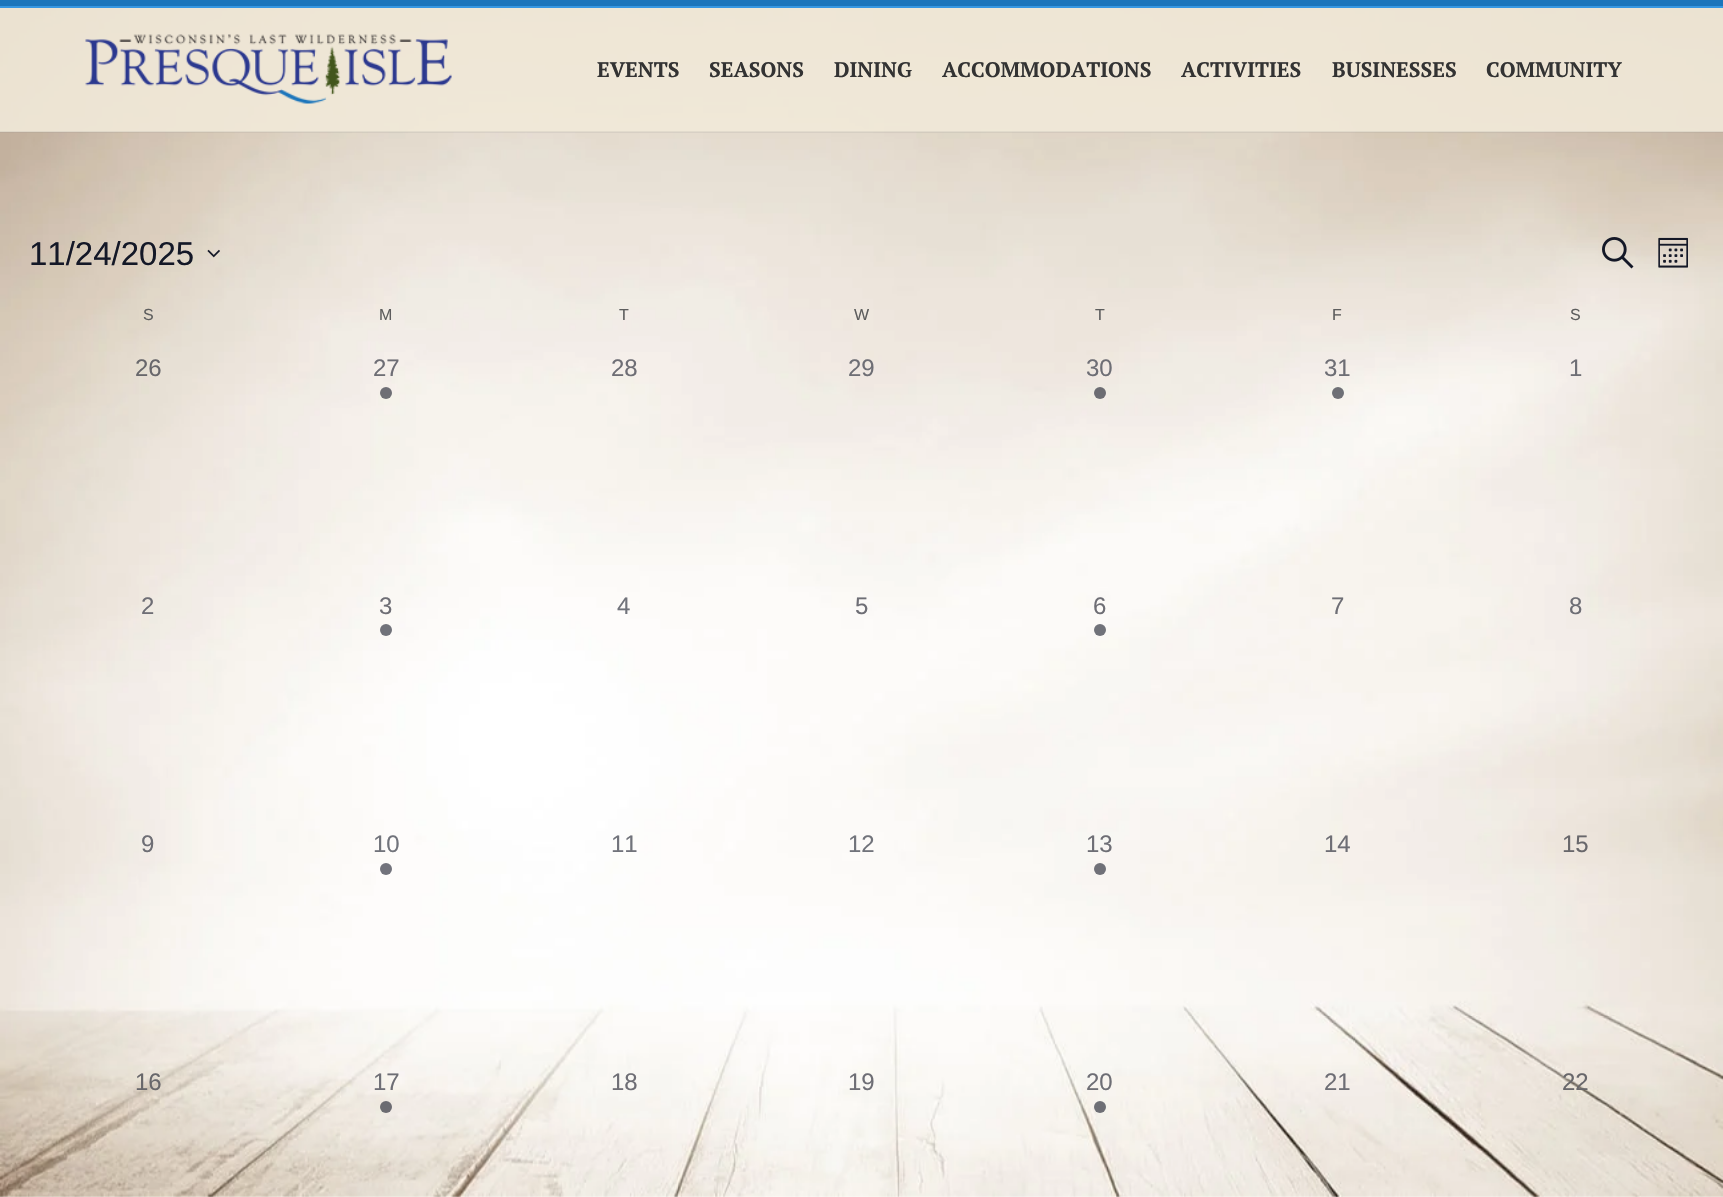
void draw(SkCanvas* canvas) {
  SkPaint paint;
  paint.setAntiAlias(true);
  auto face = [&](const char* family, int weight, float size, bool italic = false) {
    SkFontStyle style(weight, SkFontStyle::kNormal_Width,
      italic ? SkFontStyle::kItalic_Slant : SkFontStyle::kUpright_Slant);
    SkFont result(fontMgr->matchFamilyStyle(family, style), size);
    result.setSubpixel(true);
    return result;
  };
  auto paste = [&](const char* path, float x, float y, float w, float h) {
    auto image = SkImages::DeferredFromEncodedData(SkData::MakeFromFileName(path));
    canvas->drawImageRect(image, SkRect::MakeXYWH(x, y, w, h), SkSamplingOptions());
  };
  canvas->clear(0xffffffff);
  paste("img/1.png", 0, 8, 1723, 1189);
  {
    const struct { float x, y, w, h; SkColor color; } items[] = {
      {0, 0, 1723, 6, 0xff1b75bb},
      {0, 6, 1723, 2, 0xff3697e2},
      {0, 8, 1723, 124, 0xe6f1e9d8},
      {0, 131, 1723, 2, 0x21808080},
    };
    for (auto [x, y, w, h, color] : items) {
      paint.setColor(color);
      canvas->drawRect(SkRect::MakeXYWH(x, y, w, h), paint);
    }
  }
  paste("img/2.png", 85, 34, 367, 70);
  paste("img/3.png", 207, 249, 13, 9);
  paste("img/4.png", 1602, 237, 32, 32);
  paste("img/5.png", 1658, 237, 30, 31);
  paint.setColor(0x99141827);
  canvas->drawCircle(386, 393, 6, paint);
  canvas->drawCircle(1100, 393, 6, paint);
  canvas->drawCircle(1338, 393, 6, paint);
  canvas->drawCircle(386, 630, 6, paint);
  canvas->drawCircle(1100, 630, 6, paint);
  paint.setColor(0xff72737c);
  canvas->drawCircle(386, 869, 6, paint);
  paint.setColor(0xff707078);
  canvas->drawCircle(1100, 869, 6, paint);
  paint.setColor(0x99141827);
  canvas->drawCircle(386, 1107, 6, paint);
  canvas->drawCircle(1100, 1107, 6, paint);
  auto f0 = face("PT Serif", 700, 21);
  paint.setColor(0xff333333);
  {
    const struct { const char* s; float x, y; } items[] = {
      {"EVENTS", 597, 77},
      {"SEASONS", 709, 77},
      {"DINING", 834, 77},
      {"ACCOMMODATIONS", 942, 77},
      {"ACTIVITIES", 1181, 77},
      {"BUSINESSES", 1332, 77},
      {"COMMUNITY", 1486, 77},
    };
    for (auto [s, x, y] : items) {
      canvas->drawString(s, x, y, f0, paint);
    }
  }
  auto f1 = face("Liberation Sans", 400, 33);
  paint.setColor(0xff141827);
  canvas->drawString("11/24/2025", 29, 265, f1, paint);
  auto f2 = face("Liberation Sans", 400, 16);
  paint.setColor(0xff5d5d5d);
  {
    const struct { const char* s; float x, y; } items[] = {
      {"S", 143, 320},
      {"M", 379, 320},
      {"T", 619, 320},
      {"W", 854, 320},
      {"T", 1095, 320},
      {"F", 1332, 320},
      {"S", 1570, 320},
    };
    for (auto [s, x, y] : items) {
      canvas->drawString(s, x, y, f2, paint);
    }
  }
  auto f3 = face("Liberation Sans", 400, 24);
  paint.setColor(0xff68676b);
  canvas->drawString("26", 135, 376, f3, paint);
  paint.setColor(0xff6e6e75);
  {
    const struct { const char* s; float x, y; } items[] = {
      {"27", 373, 376},
      {"28", 611, 376},
      {"29", 848, 376},
      {"30", 1086, 376},
      {"31", 1324, 376},
      {"1", 1569, 376},
      {"2", 141, 614},
      {"3", 379, 614},
    };
    for (auto [s, x, y] : items) {
      canvas->drawString(s, x, y, f3, paint);
    }
  }
  paint.setColor(0xff71737b);
  canvas->drawString("4", 617, 614, f3, paint);
  paint.setColor(0xff6e6e75);
  {
    const struct { const char* s; float x, y; } items[] = {
      {"5", 855, 614},
      {"6", 1093, 614},
      {"7", 1331, 614},
      {"8", 1569, 614},
      {"9", 141, 852},
    };
    for (auto [s, x, y] : items) {
      canvas->drawString(s, x, y, f3, paint);
    }
  }
  paint.setColor(0xff71737b);
  {
    const struct { const char* s; float x, y; } items[] = {
      {"10", 373, 852},
      {"11", 611, 852},
      {"12", 848, 852},
    };
    for (auto [s, x, y] : items) {
      canvas->drawString(s, x, y, f3, paint);
    }
  }
  paint.setColor(0xff6e6e75);
  canvas->drawString("13", 1086, 852, f3, paint);
  canvas->drawString("14", 1324, 852, f3, paint);
  paint.setColor(0xff68676b);
  canvas->drawString("15", 1562, 852, f3, paint);
  canvas->drawString("16", 135, 1090, f3, paint);
  paint.setColor(0xff6e6e75);
  {
    const struct { const char* s; float x, y; } items[] = {
      {"17", 373, 1090},
      {"18", 611, 1090},
      {"19", 848, 1090},
      {"20", 1086, 1090},
      {"21", 1324, 1090},
    };
    for (auto [s, x, y] : items) {
      canvas->drawString(s, x, y, f3, paint);
    }
  }
  paint.setColor(0xff68676b);
  canvas->drawString("22", 1562, 1090, f3, paint);
}
